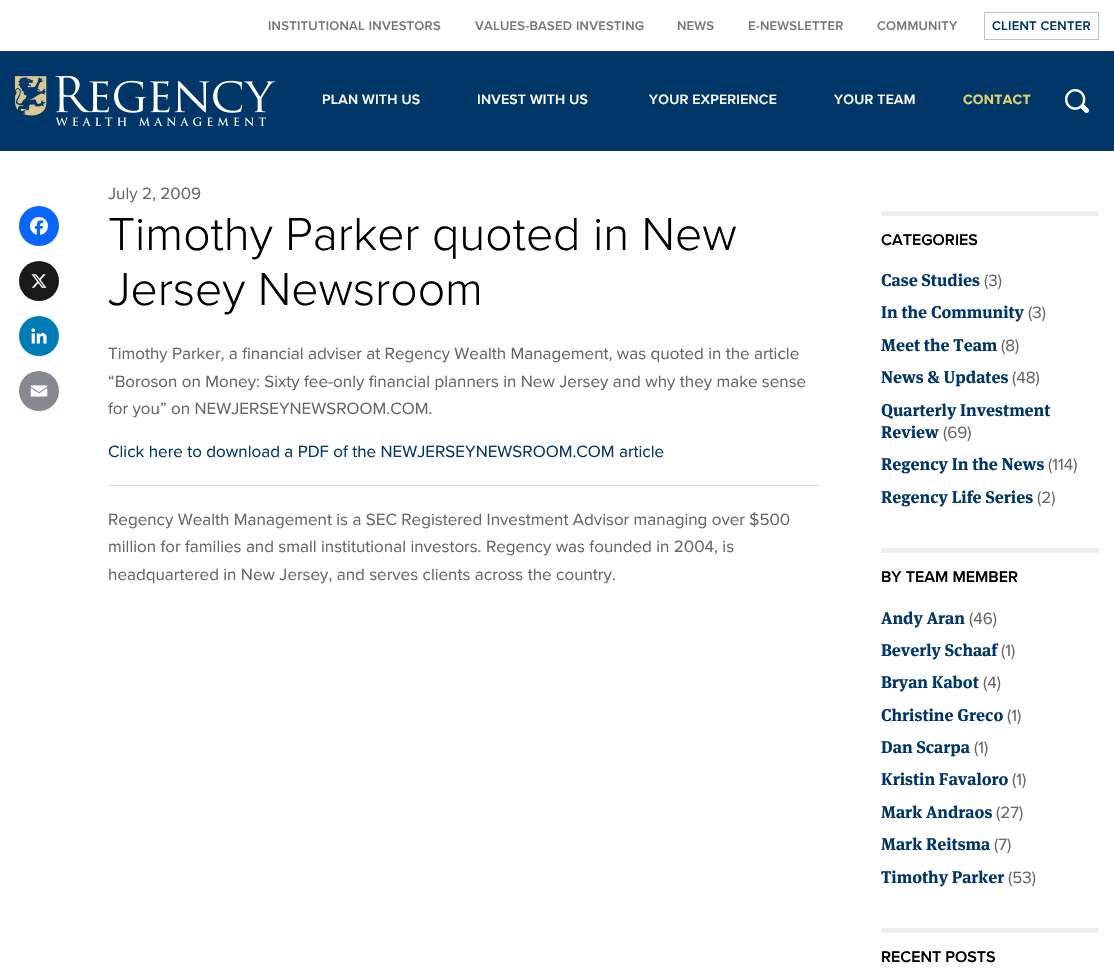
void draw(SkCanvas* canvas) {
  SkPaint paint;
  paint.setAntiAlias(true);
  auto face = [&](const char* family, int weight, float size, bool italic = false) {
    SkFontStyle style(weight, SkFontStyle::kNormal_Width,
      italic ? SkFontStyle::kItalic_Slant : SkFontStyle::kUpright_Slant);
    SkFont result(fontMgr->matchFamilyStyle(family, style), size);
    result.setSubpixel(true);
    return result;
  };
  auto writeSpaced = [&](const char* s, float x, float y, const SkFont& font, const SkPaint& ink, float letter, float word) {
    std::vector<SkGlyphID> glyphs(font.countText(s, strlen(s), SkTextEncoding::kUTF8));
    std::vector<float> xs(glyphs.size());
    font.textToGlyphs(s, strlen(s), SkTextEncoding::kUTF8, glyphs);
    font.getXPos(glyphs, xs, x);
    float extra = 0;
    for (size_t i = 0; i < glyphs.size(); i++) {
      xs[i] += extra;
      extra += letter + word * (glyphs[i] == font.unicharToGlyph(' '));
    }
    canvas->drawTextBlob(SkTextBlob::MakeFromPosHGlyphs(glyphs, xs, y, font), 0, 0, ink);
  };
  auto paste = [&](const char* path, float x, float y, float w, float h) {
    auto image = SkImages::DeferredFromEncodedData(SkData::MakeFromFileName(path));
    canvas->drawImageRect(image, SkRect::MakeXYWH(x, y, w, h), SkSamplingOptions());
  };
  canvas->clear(0xffffffff);
  paint.setStroke(true);
  paint.setStrokeWidth(1);
  paint.setColor(0xffb2c3d1);
  canvas->drawRect(SkRect::MakeXYWH(984.5f, 12.5f, 114, 27), paint);
  paint.setStroke(false);
  paint.setColor(0xff003768);
  canvas->drawRect(SkRect::MakeXYWH(0, 51, 1114, 100), paint);
  paste("img/1.png", 15, 76, 260, 50);
  paste("img/2.png", 1065, 89, 24, 24);
  paint.setColor(0xff0866ff);
  canvas->drawCircle(39, 226, 20, paint);
  paste("img/3.png", 30, 217, 18, 18);
  paint.setColor(0xff1a1a1a);
  canvas->drawCircle(39, 281, 20, paint);
  paste("img/4.png", 31, 274, 16, 14);
  paint.setColor(0xff007bb5);
  canvas->drawCircle(39, 336, 20, paint);
  paste("img/5.png", 31, 328, 16, 16);
  paint.setColor(0xff888990);
  canvas->drawCircle(39, 391, 20, paint);
  paste("img/6.png", 30, 385, 18, 12);
  {
    const struct { float x, y, w, h; SkColor color; } items[] = {
      {108, 485, 712, 1, 0xffdddddd},
      {881, 211, 218, 5, 0xffeeeeee},
      {881, 548, 218, 5, 0xffeeeeee},
      {881, 928, 218, 5, 0xffeeeeee},
    };
    for (auto [x, y, w, h, color] : items) {
      paint.setColor(color);
      canvas->drawRect(SkRect::MakeXYWH(x, y, w, h), paint);
    }
  }
  auto f0 = face("Proxima Nova", 600, 13);
  paint.setColor(0xff777777);
  {
    const struct { const char* s; float x, y; } items[] = {
      {"INSTITUTIONAL INVESTORS", 268, 30},
      {"VALUES-BASED INVESTING", 475, 30},
      {"NEWS", 677, 30},
      {"E-NEWSLETTER", 748, 30},
      {"COMMUNITY", 877, 30},
    };
    for (auto [s, x, y] : items) {
      writeSpaced(s, x, y, f0, paint, 0.25f, 0);
    }
  }
  paint.setColor(0xff003768);
  writeSpaced("CLIENT CENTER", 992, 30, f0, paint, 0.25f, 0);
  auto f1 = face("Proxima Nova", 600, 14);
  paint.setColor(0xffffffff);
  {
    const struct { const char* s; float x, y; } items[] = {
      {"PLAN WITH US", 322, 104},
      {"INVEST WITH US", 477, 104},
      {"YOUR EXPERIENCE", 649, 104},
      {"YOUR TEAM", 834, 104},
    };
    for (auto [s, x, y] : items) {
      writeSpaced(s, x, y, f1, paint, 0.25f, 0);
    }
  }
  auto f2 = face("Proxima Nova", 700, 14);
  paint.setColor(0xffe2d36d);
  writeSpaced("CONTACT", 963, 104, f2, paint, 0.25f, 0);
  auto f3 = face("Proxima Nova", 400, 17);
  paint.setColor(0xff666666);
  canvas->drawString("July 2, 2009", 108, 199, f3, paint);
  auto f4 = face("Proxima Nova", 300, 48);
  paint.setColor(0xff000000);
  canvas->drawString("Timothy Parker quoted in New", 108, 250, f4, paint);
  canvas->drawString("Jersey Newsroom", 108, 305, f4, paint);
  paint.setColor(0xff666666);
  {
    const struct { const char* s; float x, y; } items[] = {
      {"Timothy Parker, a financial adviser at Regency Wealth Management, was quoted in the article", 108, 359},
      {"“Boroson on Money: Sixty fee-only financial planners in New Jersey and why they make sense", 108, 387},
      {"for you” on NEWJERSEYNEWSROOM.COM.", 108, 414},
    };
    for (auto [s, x, y] : items) {
      canvas->drawString(s, x, y, f3, paint);
    }
  }
  paint.setColor(0xff003768);
  canvas->drawString("Click here to download a PDF of the NEWJERSEYNEWSROOM.COM article", 108, 457, f3, paint);
  paint.setColor(0xff666666);
  {
    const struct { const char* s; float x, y; } items[] = {
      {"Regency Wealth Management is a SEC Registered Investment Advisor managing over $500", 108, 525},
      {"million for families and small institutional investors. Regency was founded in 2004, is", 108, 552},
      {"headquartered in New Jersey, and serves clients across the country.", 108, 580},
    };
    for (auto [s, x, y] : items) {
      canvas->drawString(s, x, y, f3, paint);
    }
  }
  auto f5 = face("Proxima Nova", 600, 16);
  paint.setColor(0xff000000);
  canvas->drawString("CATEGORIES", 881, 245, f5, paint);
  auto f6 = face("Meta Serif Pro", 700, 17);
  paint.setColor(0xff003768);
  canvas->drawString("Case Studies", 881, 286, f6, paint);
  paint.setColor(0xff666666);
  canvas->drawString("(3)", 984, 286, f3, paint);
  paint.setColor(0xff003768);
  canvas->drawString("In the Community", 881, 318, f6, paint);
  paint.setColor(0xff666666);
  canvas->drawString("(3)", 1028, 318, f3, paint);
  paint.setColor(0xff003768);
  canvas->drawString("Meet the Team", 881, 351, f6, paint);
  paint.setColor(0xff666666);
  canvas->drawString("(8)", 1001, 351, f3, paint);
  paint.setColor(0xff003768);
  canvas->drawString("News & Updates", 881, 383, f6, paint);
  paint.setColor(0xff666666);
  canvas->drawString("(48)", 1012, 383, f3, paint);
  paint.setColor(0xff003768);
  canvas->drawString("Quarterly Investment", 881, 416, f6, paint);
  canvas->drawString("Review", 881, 438, f6, paint);
  paint.setColor(0xff666666);
  canvas->drawString("(69)", 943, 438, f3, paint);
  paint.setColor(0xff003768);
  canvas->drawString("Regency In the News", 881, 470, f6, paint);
  paint.setColor(0xff666666);
  canvas->drawString("(114)", 1048, 470, f3, paint);
  paint.setColor(0xff003768);
  canvas->drawString("Regency Life Series", 881, 503, f6, paint);
  paint.setColor(0xff666666);
  canvas->drawString("(2)", 1037, 503, f3, paint);
  paint.setColor(0xff000000);
  canvas->drawString("BY TEAM MEMBER", 881, 582, f5, paint);
  paint.setColor(0xff003768);
  canvas->drawString("Andy Aran", 881, 624, f6, paint);
  paint.setColor(0xff666666);
  canvas->drawString("(46)", 969, 624, f3, paint);
  paint.setColor(0xff003768);
  canvas->drawString("Beverly Schaaf", 881, 656, f6, paint);
  paint.setColor(0xff666666);
  canvas->drawString("(1)", 1001, 656, f3, paint);
  paint.setColor(0xff003768);
  canvas->drawString("Bryan Kabot", 881, 688, f6, paint);
  paint.setColor(0xff666666);
  canvas->drawString("(4)", 983, 688, f3, paint);
  paint.setColor(0xff003768);
  canvas->drawString("Christine Greco", 881, 721, f6, paint);
  paint.setColor(0xff666666);
  canvas->drawString("(1)", 1007, 721, f3, paint);
  paint.setColor(0xff003768);
  canvas->drawString("Dan Scarpa", 881, 753, f6, paint);
  paint.setColor(0xff666666);
  canvas->drawString("(1)", 974, 753, f3, paint);
  paint.setColor(0xff003768);
  canvas->drawString("Kristin Favaloro", 881, 785, f6, paint);
  paint.setColor(0xff666666);
  canvas->drawString("(1)", 1012, 785, f3, paint);
  paint.setColor(0xff003768);
  canvas->drawString("Mark Andraos", 881, 818, f6, paint);
  paint.setColor(0xff666666);
  canvas->drawString("(27)", 996, 818, f3, paint);
  paint.setColor(0xff003768);
  canvas->drawString("Mark Reitsma", 881, 850, f6, paint);
  paint.setColor(0xff666666);
  canvas->drawString("(7)", 994, 850, f3, paint);
  paint.setColor(0xff003768);
  canvas->drawString("Timothy Parker", 881, 883, f6, paint);
  paint.setColor(0xff666666);
  canvas->drawString("(53)", 1008, 883, f3, paint);
  paint.setColor(0xff000000);
  canvas->drawString("RECENT POSTS", 881, 962, f5, paint);
}
